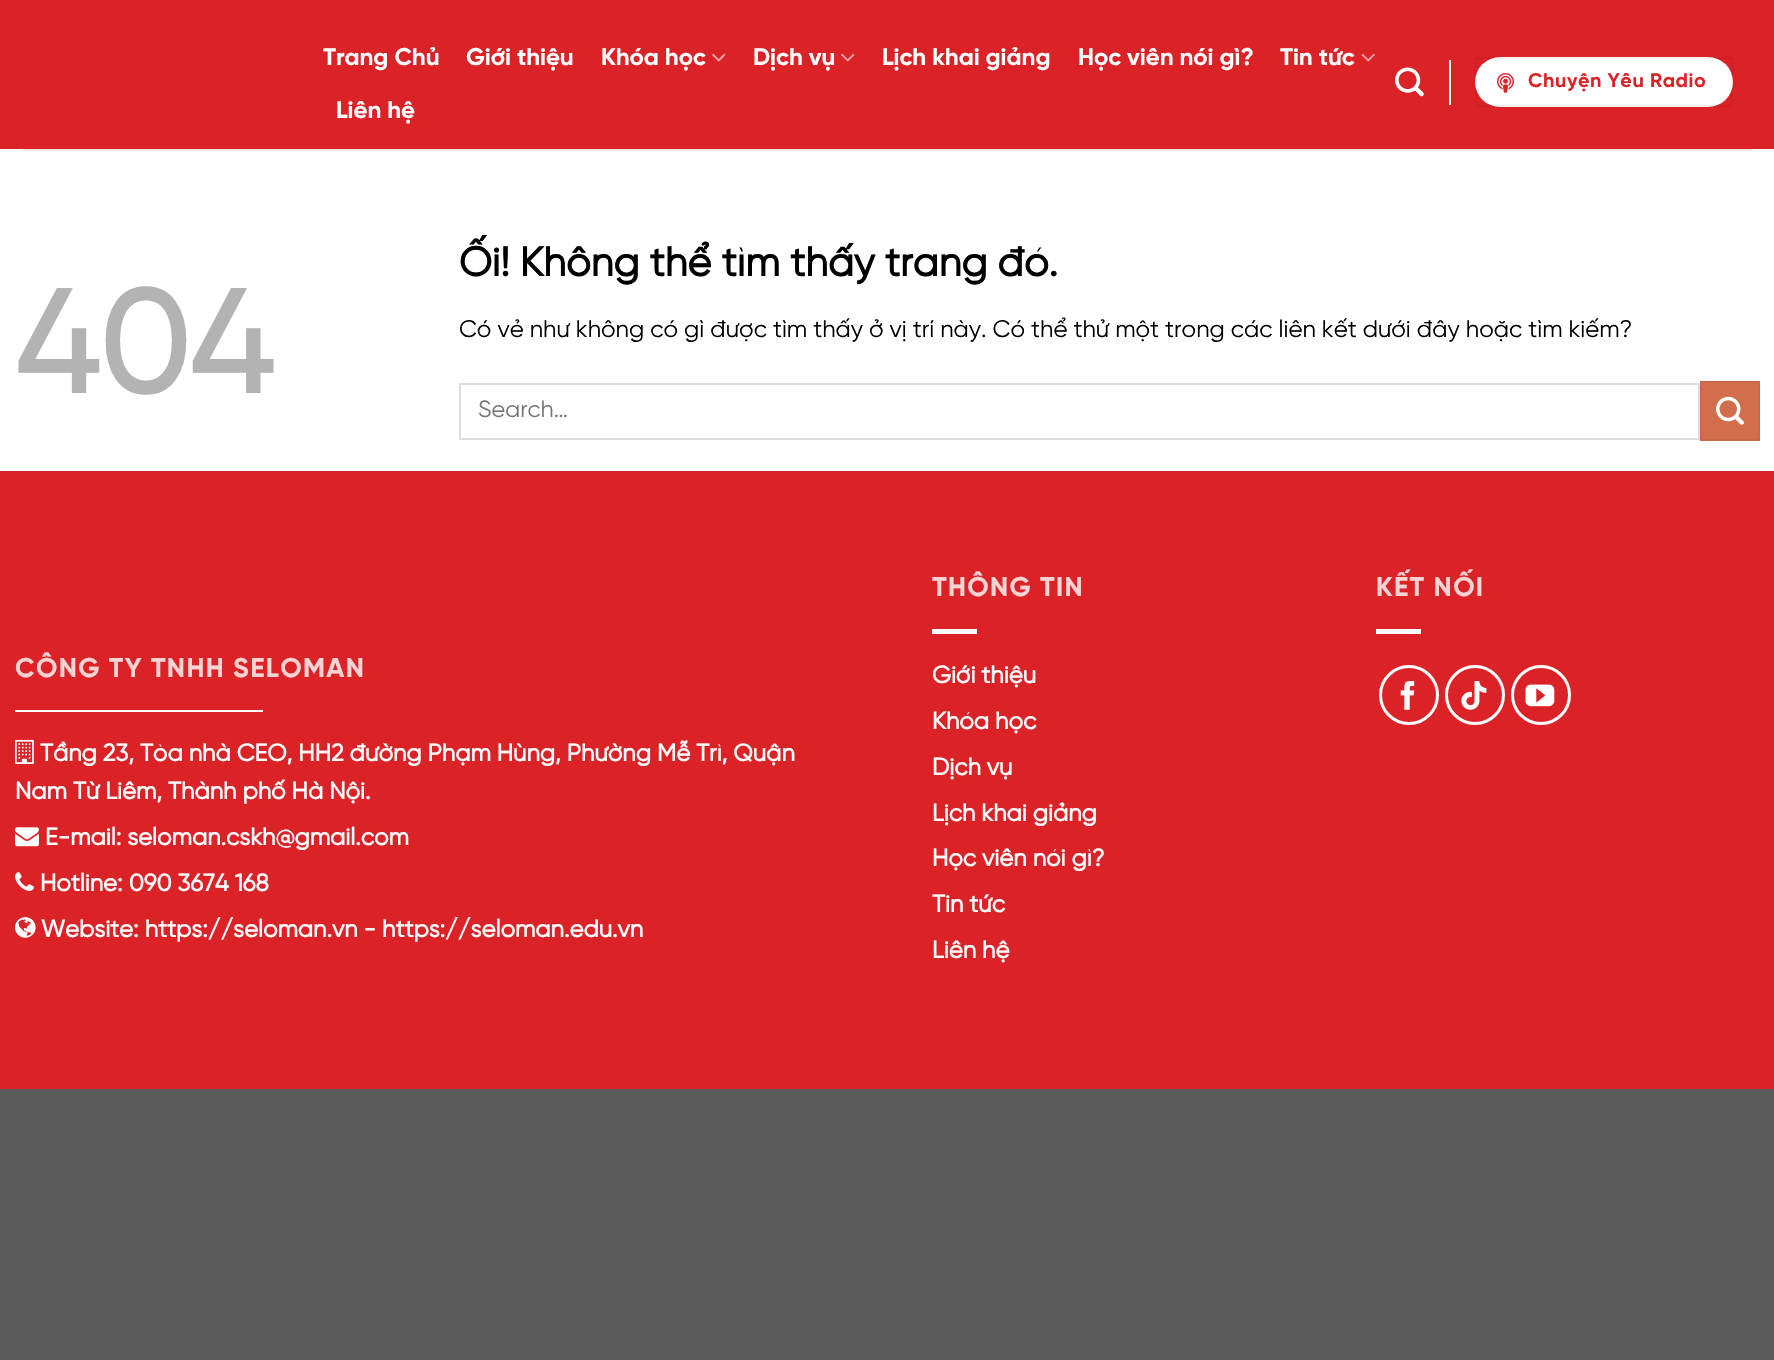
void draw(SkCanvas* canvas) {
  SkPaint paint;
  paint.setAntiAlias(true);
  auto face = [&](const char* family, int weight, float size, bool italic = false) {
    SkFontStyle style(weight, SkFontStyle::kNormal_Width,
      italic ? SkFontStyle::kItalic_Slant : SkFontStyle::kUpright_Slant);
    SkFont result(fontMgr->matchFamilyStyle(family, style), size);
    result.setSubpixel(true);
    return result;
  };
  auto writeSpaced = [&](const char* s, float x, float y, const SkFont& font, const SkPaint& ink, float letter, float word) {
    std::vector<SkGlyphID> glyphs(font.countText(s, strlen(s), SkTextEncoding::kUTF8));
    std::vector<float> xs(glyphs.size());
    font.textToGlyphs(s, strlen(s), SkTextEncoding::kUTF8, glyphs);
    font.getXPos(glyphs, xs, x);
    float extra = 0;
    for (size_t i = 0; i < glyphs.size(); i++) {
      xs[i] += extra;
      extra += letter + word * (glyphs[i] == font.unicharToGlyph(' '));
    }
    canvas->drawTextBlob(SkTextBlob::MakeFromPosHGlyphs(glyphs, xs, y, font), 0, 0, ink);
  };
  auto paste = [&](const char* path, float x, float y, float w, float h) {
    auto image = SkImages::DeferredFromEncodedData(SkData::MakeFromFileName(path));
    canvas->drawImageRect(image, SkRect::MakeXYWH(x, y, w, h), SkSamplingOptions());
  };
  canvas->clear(0xff5b5b5b);
  paint.setColor(0xffffffff);
  canvas->drawRect(SkRect::MakeXYWH(0, 149, 1774, 322), paint);
  paint.setColor(0xffda2227);
  canvas->drawRect(SkRect::MakeXYWH(0, 0, 1774, 149), paint);
  paste("img/1.png", 712, 53, 14, 9);
  paste("img/1.png", 841, 53, 14, 9);
  paste("img/2.png", 1361, 53, 14, 9);
  paste("img/3.png", 1395, 67, 29, 30);
  paint.setColor(0xffffffff);
  canvas->drawRect(SkRect::MakeXYWH(1449, 60, 2, 45), paint);
  canvas->drawRoundRect(SkRect::MakeXYWH(1475, 57, 258, 50), 25, 25, paint);
  paint.setStroke(true);
  paint.setStrokeWidth(2);
  paint.setColor(0x0d000000);
  canvas->drawRect(SkRect::MakeXYWH(1476, 58, 256, 48), paint);
  paste("img/4.png", 1497, 73, 17, 20);
  paint.setStroke(false);
  paint.setColor(0xffe6e6e6);
  canvas->drawRect(SkRect::MakeXYWH(23, 149, 1729, 2), paint);
  paint.setStroke(true);
  paint.setColor(0xffdddddd);
  canvas->drawRect(SkRect::MakeXYWH(460, 384, 1239, 55), paint);
  paint.setStroke(false);
  paint.setColor(0xffd26e4b);
  canvas->drawRect(SkRect::MakeXYWH(1701, 382, 58, 58), paint);
  paint.setStroke(true);
  paint.setColor(0xffc86947);
  canvas->drawRect(SkRect::MakeXYWH(1701, 382, 58, 58), paint);
  paste("img/5.png", 1716, 396, 28, 29);
  paint.setStroke(false);
  paint.setColor(0xffda2227);
  canvas->drawRect(SkRect::MakeXYWH(0, 471, 1774, 618), paint);
  paint.setColor(0xffffffff);
  canvas->drawRect(SkRect::MakeXYWH(15, 710, 248, 2), paint);
  paste("img/6.png", 15, 739, 19, 25);
  paste("img/7.png", 15, 827, 24, 20);
  paste("img/8.png", 15, 872, 19, 19);
  paste("img/9.png", 15, 917, 21, 21);
  canvas->drawRect(SkRect::MakeXYWH(932, 629, 45, 5), paint);
  canvas->drawRect(SkRect::MakeXYWH(1376, 629, 45, 5), paint);
  paint.setStroke(true);
  paint.setStrokeWidth(3);
  canvas->drawCircle(1409, 695, 28.5f, paint);
  paste("img/10.png", 1400, 681, 15, 29);
  canvas->drawCircle(1475, 695, 28.5f, paint);
  paste("img/11.png", 1461, 681, 26, 29);
  canvas->drawCircle(1541, 695, 28.5f, paint);
  paste("img/12.png", 1525, 684, 30, 23);
  auto f0 = face("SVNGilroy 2", 700, 24);
  paint.setStroke(false);
  {
    const struct { const char* s; float x, y; } items[] = {
      {"Trang Chủ", 323, 65},
      {"Giới thiệu", 466, 65},
      {"Khóa học", 601, 65},
      {"Dịch vụ", 753, 65},
      {"Lịch khai giảng", 882, 65},
      {"Học viên nói gì?", 1078, 65},
      {"Tin tức", 1280, 65},
      {"Liên hệ", 336, 118},
    };
    for (auto [s, x, y] : items) {
      canvas->drawString(s, x, y, f0, paint);
    }
  }
  auto f1 = face("SVNGilroy 2", 700, 19.75f);
  paint.setColor(0xffda2227);
  writeSpaced("Chuyện Yêu Radio", 1528, 87, f1, paint, 0.6f, 0);
  auto f2 = face("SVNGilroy", 700, 144);
  paint.setColor(0xffb3b3b3);
  canvas->drawString("404", 15, 393, f2, paint);
  auto f3 = face("SVNGilroy", 700, 40.75f);
  paint.setColor(0xff000000);
  canvas->drawString("Ối! Không thể tìm thấy trang đó.", 459, 276, f3, paint);
  auto f4 = face("SVNGilroy", 400, 24);
  canvas->drawString("Có vẻ như không có gì được tìm thấy ở vị trí này. Có thể thử một trong các liên kết dưới đây hoặc tìm kiếm?", 459, 337, f4, paint);
  auto f5 = face("SVNGilroy", 400, 23.5f);
  paint.setColor(0xff757575);
  canvas->drawString("Search…", 478, 417, f5, paint);
  auto f6 = face("SVNGilroy 2", 700, 27);
  paint.setColor(0xfff8d3d4);
  writeSpaced("CÔNG TY TNHH SELOMAN", 15, 677, f6, paint, 1.35f, 0);
  auto f7 = face("SVNGilroy", 700, 24);
  paint.setColor(0xffffffff);
  {
    const struct { const char* s; float x, y; } items[] = {
      {"Tầng 23, Tòa nhà CEO, HH2 đường Phạm Hùng, Phường Mễ Trì, Quận", 40, 761},
      {"Nam Từ Liêm, Thành phố Hà Nội.", 15, 799},
      {"E-mail: seloman.cskh@gmail.com", 45, 845},
      {"Hotline: 090 3674 168", 40, 891},
      {"Website: https://seloman.vn - https://seloman.edu.vn", 41, 937},
    };
    for (auto [s, x, y] : items) {
      canvas->drawString(s, x, y, f7, paint);
    }
  }
  paint.setColor(0xfff8d3d4);
  writeSpaced("THÔNG TIN", 932, 596, f6, paint, 1.35f, 0);
  paint.setColor(0xffffffff);
  {
    const struct { const char* s; float x, y; } items[] = {
      {"Giới thiệu", 932, 683},
      {"Khóa học", 932, 729},
      {"Dịch vụ", 932, 775},
      {"Lịch khai giảng", 932, 821},
      {"Học viên nói gì?", 932, 866},
      {"Tin tức", 932, 912},
      {"Liên hệ", 932, 958},
    };
    for (auto [s, x, y] : items) {
      canvas->drawString(s, x, y, f7, paint);
    }
  }
  paint.setColor(0xfff8d3d4);
  writeSpaced("KẾT NỐI", 1376, 596, f6, paint, 1.35f, 0);
}
